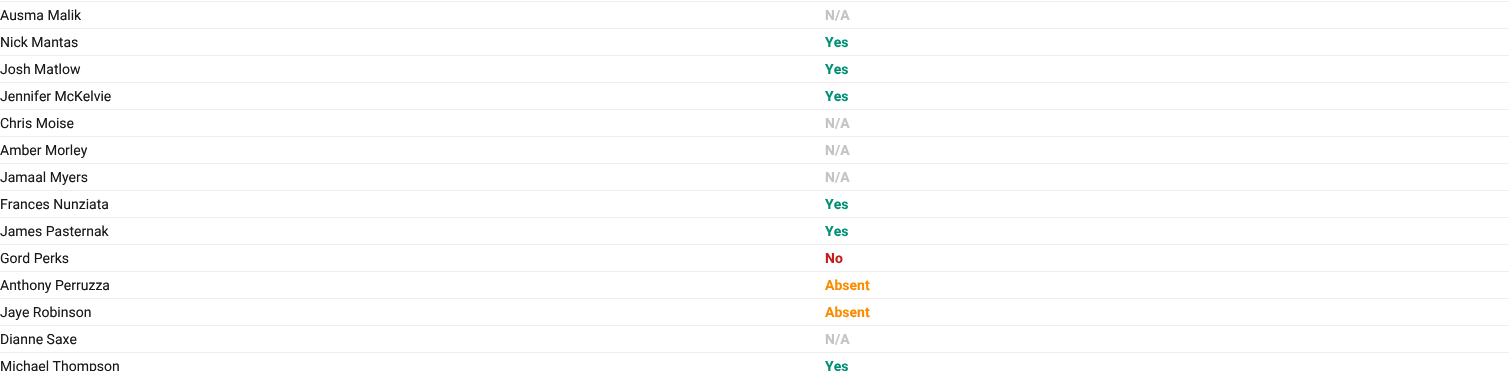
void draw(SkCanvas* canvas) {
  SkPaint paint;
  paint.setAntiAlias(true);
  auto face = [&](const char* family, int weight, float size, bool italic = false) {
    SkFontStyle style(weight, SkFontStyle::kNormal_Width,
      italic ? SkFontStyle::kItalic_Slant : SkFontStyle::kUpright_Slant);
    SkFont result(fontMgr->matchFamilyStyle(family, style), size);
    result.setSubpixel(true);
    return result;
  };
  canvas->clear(0xffffffff);
  {
    const struct { float x, y, w, h; SkColor color; } items[] = {
      {0, 1, 1509, 1, 0xffeeeeee},
      {0, 28, 1509, 1, 0xffeeeeee},
      {0, 55, 1509, 1, 0xffeeeeee},
      {0, 82, 1509, 1, 0xffeeeeee},
      {0, 109, 1509, 1, 0xffeeeeee},
      {0, 136, 1509, 1, 0xffeeeeee},
      {0, 163, 1509, 1, 0xffeeeeee},
      {0, 190, 1509, 1, 0xffeeeeee},
      {0, 217, 1509, 1, 0xffeeeeee},
      {0, 244, 1509, 1, 0xffeeeeee},
      {0, 271, 1509, 1, 0xffeeeeee},
      {0, 298, 1509, 1, 0xffeeeeee},
      {0, 325, 1509, 1, 0xffeeeeee},
      {0, 352, 1509, 1, 0xffeeeeee},
    };
    for (auto [x, y, w, h, color] : items) {
      paint.setColor(color);
      canvas->drawRect(SkRect::MakeXYWH(x, y, w, h), paint);
    }
  }
  auto f0 = face("Roboto", 400, 14);
  paint.setColor(0xff181818);
  canvas->drawString("Ausma Malik", 0, 20, f0, paint);
  auto f1 = face("Roboto", 700, 14);
  paint.setColor(0xffc4c4c4);
  canvas->drawString("N/A", 825, 20, f1, paint);
  paint.setColor(0xff181818);
  canvas->drawString("Nick Mantas", 0, 47, f0, paint);
  paint.setColor(0xff009076);
  canvas->drawString("Yes", 825, 47, f1, paint);
  paint.setColor(0xff181818);
  canvas->drawString("Josh Matlow", 0, 74, f0, paint);
  paint.setColor(0xff009076);
  canvas->drawString("Yes", 825, 74, f1, paint);
  paint.setColor(0xff181818);
  canvas->drawString("Jennifer McKelvie", 0, 101, f0, paint);
  paint.setColor(0xff009076);
  canvas->drawString("Yes", 825, 101, f1, paint);
  paint.setColor(0xff181818);
  canvas->drawString("Chris Moise", 0, 128, f0, paint);
  paint.setColor(0xffc4c4c4);
  canvas->drawString("N/A", 825, 128, f1, paint);
  paint.setColor(0xff181818);
  canvas->drawString("Amber Morley", 0, 155, f0, paint);
  paint.setColor(0xffc4c4c4);
  canvas->drawString("N/A", 825, 155, f1, paint);
  paint.setColor(0xff181818);
  canvas->drawString("Jamaal Myers", 0, 182, f0, paint);
  paint.setColor(0xffc4c4c4);
  canvas->drawString("N/A", 825, 182, f1, paint);
  paint.setColor(0xff181818);
  canvas->drawString("Frances Nunziata", 0, 209, f0, paint);
  paint.setColor(0xff009076);
  canvas->drawString("Yes", 825, 209, f1, paint);
  paint.setColor(0xff181818);
  canvas->drawString("James Pasternak", 0, 236, f0, paint);
  paint.setColor(0xff009076);
  canvas->drawString("Yes", 825, 236, f1, paint);
  paint.setColor(0xff181818);
  canvas->drawString("Gord Perks", 0, 263, f0, paint);
  paint.setColor(0xffc71e1d);
  canvas->drawString("No", 825, 263, f1, paint);
  paint.setColor(0xff181818);
  canvas->drawString("Anthony Perruzza", 0, 290, f0, paint);
  paint.setColor(0xfffa8c00);
  canvas->drawString("Absent", 825, 290, f1, paint);
  paint.setColor(0xff181818);
  canvas->drawString("Jaye Robinson", 0, 317, f0, paint);
  paint.setColor(0xfffa8c00);
  canvas->drawString("Absent", 825, 317, f1, paint);
  paint.setColor(0xff181818);
  canvas->drawString("Dianne Saxe", 0, 344, f0, paint);
  paint.setColor(0xffc4c4c4);
  canvas->drawString("N/A", 825, 344, f1, paint);
  paint.setColor(0xff181818);
  canvas->drawString("Michael Thompson", 0, 371, f0, paint);
  paint.setColor(0xff009076);
  canvas->drawString("Yes", 825, 371, f1, paint);
}
